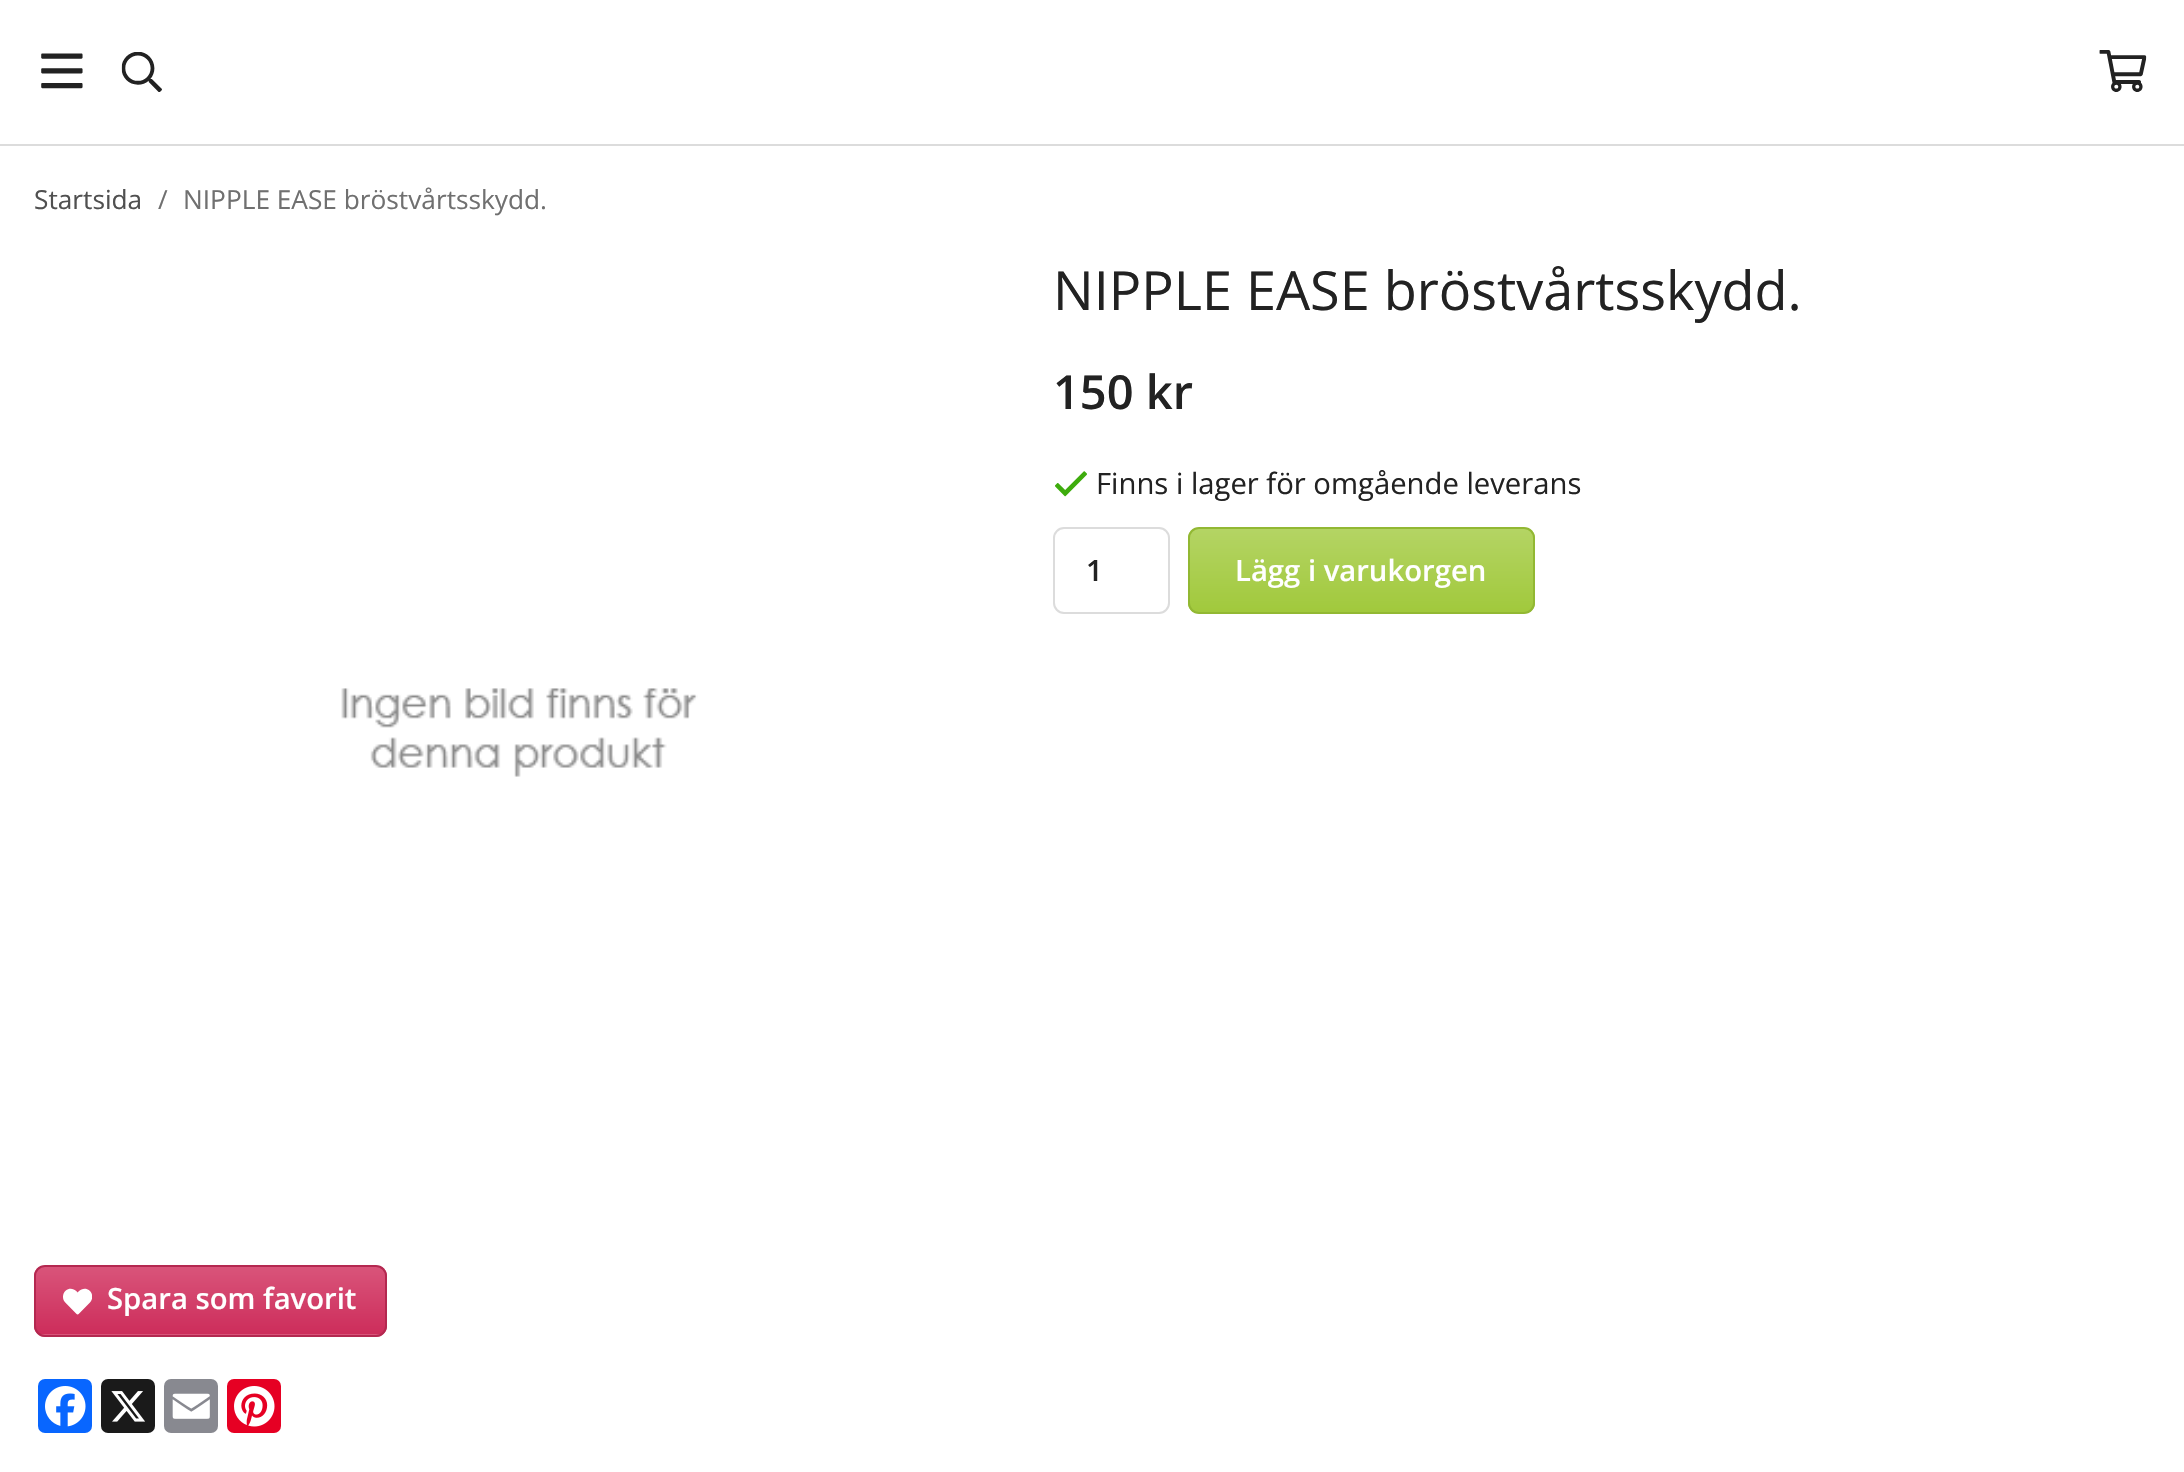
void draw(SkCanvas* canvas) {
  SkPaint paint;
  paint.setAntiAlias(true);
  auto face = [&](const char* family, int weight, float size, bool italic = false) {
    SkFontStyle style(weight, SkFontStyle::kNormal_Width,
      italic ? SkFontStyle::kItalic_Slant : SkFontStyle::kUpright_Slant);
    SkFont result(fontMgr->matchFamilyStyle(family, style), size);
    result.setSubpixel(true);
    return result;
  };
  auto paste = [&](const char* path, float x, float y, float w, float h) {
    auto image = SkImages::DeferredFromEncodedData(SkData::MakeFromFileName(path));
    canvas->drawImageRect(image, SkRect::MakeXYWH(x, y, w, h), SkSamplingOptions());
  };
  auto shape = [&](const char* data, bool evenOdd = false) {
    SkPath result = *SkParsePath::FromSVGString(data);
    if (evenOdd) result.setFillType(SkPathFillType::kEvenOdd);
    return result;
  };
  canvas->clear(0xffffffff);
  paint.setColor(0xffdcdcdc);
  canvas->drawRect(SkRect::MakeXYWH(0, 144, 2184, 2), paint);
  paste("img/1.png", 41, 53, 42, 36);
  paste("img/2.png", 121, 52, 41, 40);
  paste("img/3.png", 2099, 50, 48, 42);
  paste("img/4.png", 1055, 471, 32, 26);
  paint.setStroke(true);
  paint.setStrokeWidth(2);
  canvas->drawRoundRect(SkRect::MakeXYWH(1054, 528, 115, 85), 10, 10, paint);
  canvas->save();
  canvas->clipPath(shape("M1199 527H1524C1530 527 1535 532 1535 538V603C1535 609 1530 614 1524 614H1199C1193 614 1188 609 1188 603V538C1188 532 1193 527 1199 527Z"), true);
  paint.setStroke(false);
  {
    const SkColor colors[] = {0xffb4d464, 0xffa1c93c};
    const float stops[] = {0, 1};
    const SkPoint ends[] = {{1361, 529}, {1361, 612}};
    paint.setShader(SkGradientShader::MakeLinear(ends, colors, stops, 2, SkTileMode::kClamp));
    paint.setAlpha(255);
  }
  canvas->drawRect(SkRect::MakeXYWH(1188, 529, 347, 83), paint);
  canvas->restore();
  paint.setStroke(true);
  paint.setShader(nullptr);
  paint.setColor(0xff92b833);
  canvas->drawRoundRect(SkRect::MakeXYWH(1189, 528, 345, 85), 10, 10, paint);
  paste("img/5.png", 341, 688, 357, 89);
  canvas->save();
  canvas->clipPath(shape("M45 1265H376C382 1265 387 1270 387 1276V1326C387 1332 382 1337 376 1337H45C39 1337 34 1332 34 1326V1276C34 1270 39 1265 45 1265Z"), true);
  paint.setStroke(false);
  {
    const SkColor colors[] = {0xffd9547a, 0xffcd2d5b};
    const float stops[] = {0, 1};
    const SkPoint ends[] = {{210, 1267}, {210, 1334}};
    paint.setShader(SkGradientShader::MakeLinear(ends, colors, stops, 2, SkTileMode::kClamp));
    paint.setAlpha(255);
  }
  canvas->drawRect(SkRect::MakeXYWH(34, 1267, 353, 67), paint);
  {
    const SkColor colors[] = {0xffd9547a, 0xffcd2d5b};
    const float stops[] = {0, 1};
    const SkPoint ends[] = {{210, 1334}, {210, 1402}};
    paint.setShader(SkGradientShader::MakeLinear(ends, colors, stops, 2, SkTileMode::kClamp));
    paint.setAlpha(255);
  }
  canvas->drawRect(SkRect::MakeXYWH(34, 1334, 353, 3), paint);
  canvas->restore();
  paint.setStroke(true);
  paint.setShader(nullptr);
  paint.setColor(0xffb42850);
  canvas->drawRoundRect(SkRect::MakeXYWH(35, 1266, 351, 70), 10, 10, paint);
  paste("img/6.png", 63, 1288, 29, 27);
  paint.setStroke(false);
  paint.setColor(0xff0866ff);
  canvas->drawRoundRect(SkRect::MakeXYWH(38, 1379, 54, 54), 7, 7, paint);
  paste("img/7.png", 45, 1386, 41, 41);
  paint.setColor(0xff1a1a1a);
  canvas->drawRoundRect(SkRect::MakeXYWH(101, 1379, 54, 54), 7, 7, paint);
  paste("img/8.png", 111, 1391, 34, 31);
  paint.setColor(0xff888990);
  canvas->drawRoundRect(SkRect::MakeXYWH(164, 1379, 54, 54), 7, 7, paint);
  paste("img/9.png", 172, 1393, 38, 26);
  paint.setColor(0xffe60023);
  canvas->drawRoundRect(SkRect::MakeXYWH(227, 1379, 54, 54), 7, 7, paint);
  paste("img/10.png", 234, 1386, 41, 41);
  auto f0 = face("Open Sans", 400, 26.25f);
  paint.setColor(0xff505050);
  canvas->drawString("Startsida", 34, 209, f0, paint);
  paint.setColor(0xff707070);
  canvas->drawString("/", 158, 209, f0, paint);
  canvas->drawString("NIPPLE EASE bröstvårtsskydd.", 183, 209, f0, paint);
  auto f1 = face("Open Sans", 400, 54);
  paint.setColor(0xff222222);
  canvas->drawString("NIPPLE EASE bröstvårtsskydd.", 1053, 310, f1, paint);
  auto f2 = face("Open Sans", 600, 47);
  canvas->drawString("150 kr", 1053, 409, f2, paint);
  auto f3 = face("Open Sans", 400, 29.25f);
  canvas->drawString("Finns i lager för omgående leverans", 1096, 494, f3, paint);
  auto f4 = face("Open Sans", 600, 29.25f);
  canvas->drawString("1", 1086, 581, f4, paint);
  paint.setColor(0xffffffff);
  canvas->drawString("Lägg i varukorgen", 1235, 581, f4, paint);
  canvas->drawString("Spara som favorit", 107, 1309, f4, paint);
}
